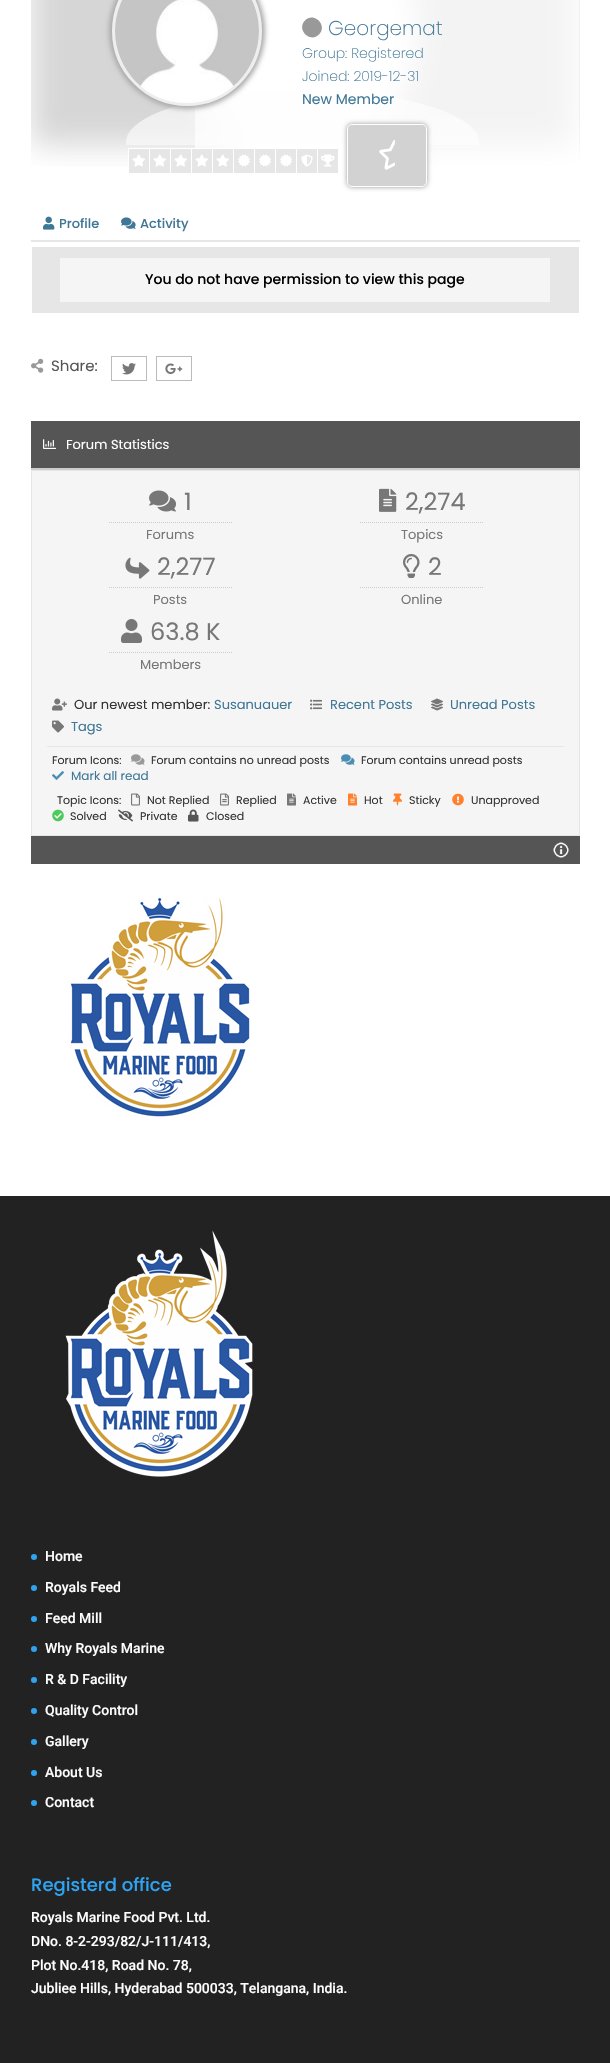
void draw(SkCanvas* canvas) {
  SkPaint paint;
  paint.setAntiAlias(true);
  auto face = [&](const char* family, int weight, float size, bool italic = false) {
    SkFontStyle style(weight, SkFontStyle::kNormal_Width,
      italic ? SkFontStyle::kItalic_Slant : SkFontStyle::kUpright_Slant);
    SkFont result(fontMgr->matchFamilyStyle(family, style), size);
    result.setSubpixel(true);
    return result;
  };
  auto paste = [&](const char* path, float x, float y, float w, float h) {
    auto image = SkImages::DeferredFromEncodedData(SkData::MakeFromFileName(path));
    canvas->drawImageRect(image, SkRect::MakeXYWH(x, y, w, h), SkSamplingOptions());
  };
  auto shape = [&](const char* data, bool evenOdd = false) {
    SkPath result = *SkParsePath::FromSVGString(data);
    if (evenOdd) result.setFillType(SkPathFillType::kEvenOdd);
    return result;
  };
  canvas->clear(0xffffffff);
  paste("img/1.png", 31, 0, 549, 166);
  canvas->save();
  canvas->clipRect(SkRect::MakeXYWH(31, 0, 543, 145));
  paint.setColor(0xb3f9f9f9);
  canvas->drawPath(shape("M302 90C400 90 479 114 479 142V195H126V142C126 114 205 90 302 90Z"), paint);
  canvas->restore();
  paint.setColor(0xb3ffffff);
  canvas->drawPath(shape("M203-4H579V191H195V0C195-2 198-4 203-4Z"), paint);
  paint.setColor(0xffaaaaaa);
  paint.setMaskFilter(SkMaskFilter::MakeBlur(kNormal_SkBlurStyle, 2.5f));
  canvas->drawRoundRect(SkRect::MakeXYWH(109, -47, 156, 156), 78, 78, paint);
  paint.setMaskFilter(nullptr);
  paint.setColor(0xfffefefe);
  canvas->drawCircle(187, 31, 73.5f, paint);
  paint.setStroke(true);
  paint.setStrokeWidth(3);
  paint.setColor(0xffeeeeee);
  canvas->drawCircle(187, 31, 73.5f, paint);
  paste("img/2.png", 115, 0, 144, 98);
  paint.setStroke(false);
  paint.setColor(0xff999999);
  canvas->drawPath(shape("M305 20.5C314 11.5 328 25.5 319 34.5C310 43.5 296 29.5 305 20.5Z"), paint);
  paint.setColor(0xffffffff);
  canvas->drawRect(SkRect::MakeXYWH(128, 148, 105, 18), paint);
  paint.setColor(0xffe6e6e6);
  canvas->drawRect(SkRect::MakeXYWH(129, 149, 20, 24), paint);
  paste("img/3.png", 132, 154, 13, 13);
  canvas->drawRect(SkRect::MakeXYWH(150, 149, 20, 24), paint);
  paste("img/3.png", 153, 154, 13, 13);
  canvas->drawRect(SkRect::MakeXYWH(171, 149, 20, 24), paint);
  paste("img/3.png", 174, 154, 13, 13);
  canvas->drawRect(SkRect::MakeXYWH(192, 149, 20, 24), paint);
  paste("img/3.png", 195, 154, 13, 13);
  canvas->drawRect(SkRect::MakeXYWH(213, 149, 20, 24), paint);
  paste("img/3.png", 216, 154, 13, 13);
  canvas->drawRect(SkRect::MakeXYWH(234, 149, 20, 24), paint);
  paste("img/4.png", 238, 154, 12, 13);
  canvas->drawRect(SkRect::MakeXYWH(255, 149, 20, 24), paint);
  paste("img/4.png", 259, 154, 12, 13);
  canvas->drawRect(SkRect::MakeXYWH(276, 149, 20, 24), paint);
  paste("img/4.png", 280, 154, 12, 13);
  canvas->drawRect(SkRect::MakeXYWH(297, 149, 20, 24), paint);
  paste("img/5.png", 301, 154, 12, 13);
  canvas->drawRect(SkRect::MakeXYWH(318, 149, 20, 24), paint);
  paste("img/6.png", 321, 154, 14, 13);
  paint.setColor(0xff999999);
  paint.setMaskFilter(SkMaskFilter::MakeBlur(kNormal_SkBlurStyle, 2.5f));
  canvas->drawRoundRect(SkRect::MakeXYWH(347, 124, 80, 63), 5, 5, paint);
  paint.setMaskFilter(nullptr);
  paint.setColor(0xffd2d2d2);
  canvas->drawRoundRect(SkRect::MakeXYWH(347.5f, 124.5f, 79, 62), 4.5f, 4.5f, paint);
  paint.setStroke(true);
  paint.setStrokeWidth(1);
  paint.setColor(0xffffffff);
  canvas->drawRoundRect(SkRect::MakeXYWH(347.5f, 124.5f, 79, 62), 4.5f, 4.5f, paint);
  paste("img/7.png", 379, 139, 16, 31);
  paint.setStroke(false);
  paint.setColor(0xffe6e6e6);
  canvas->drawRect(SkRect::MakeXYWH(31, 240, 549, 2), paint);
  paste("img/8.png", 43, 216, 12, 14);
  paste("img/9.png", 121, 217, 15, 12);
  canvas->drawRect(SkRect::MakeXYWH(32, 247, 547, 66), paint);
  paint.setColor(0xfff5f5f5);
  canvas->drawRect(SkRect::MakeXYWH(60, 258, 490, 44), paint);
  paste("img/10.png", 31, 358, 13, 15);
  paint.setStroke(true);
  paint.setColor(0xffbbbbbb);
  canvas->drawRect(SkRect::MakeXYWH(111.5f, 356.5f, 35, 24), paint);
  paste("img/11.png", 122, 363, 14, 12);
  canvas->drawRect(SkRect::MakeXYWH(156.5f, 356.5f, 35, 24), paint);
  paste("img/12.png", 165, 363, 18, 11);
  paint.setStroke(false);
  paint.setColor(0xff555555);
  canvas->drawRect(SkRect::MakeXYWH(31, 421, 549, 47), paint);
  paint.setColor(0xffcccccc);
  canvas->drawRect(SkRect::MakeXYWH(31, 468, 549, 2), paint);
  paste("img/13.png", 43, 439, 13, 10);
  paint.setColor(0xfff5f5f5);
  canvas->drawRect(SkRect::MakeXYWH(31.5f, 470.5f, 548, 365), paint);
  paint.setStroke(true);
  paint.setColor(0xffe6e6e6);
  canvas->drawRect(SkRect::MakeXYWH(31.5f, 470.5f, 548, 365), paint);
  paste("img/14.png", 149, 490, 27, 22);
  paint.setColor(0xffcccccc);
  paint.setPathEffect(SkDashPathEffect::Make({{1, 1}}, 0));
  canvas->drawPath(shape("M109 522.5H233"), paint);
  paint.setPathEffect(nullptr);
  paste("img/15.png", 379, 488, 18, 24);
  paint.setPathEffect(SkDashPathEffect::Make({{1, 1}}, 0));
  canvas->drawPath(shape("M360 522.5H484"), paint);
  paint.setPathEffect(nullptr);
  paste("img/16.png", 125, 557, 25, 22);
  paint.setPathEffect(SkDashPathEffect::Make({{1, 1}}, 0));
  canvas->drawPath(shape("M109 587.5H233"), paint);
  paint.setPathEffect(nullptr);
  paste("img/17.png", 403, 554, 17, 24);
  paint.setPathEffect(SkDashPathEffect::Make({{1, 1}}, 0));
  canvas->drawPath(shape("M360 587.5H484"), paint);
  paint.setPathEffect(nullptr);
  paste("img/18.png", 121, 619, 21, 24);
  paint.setPathEffect(SkDashPathEffect::Make({{1, 1}}, 0));
  canvas->drawPath(shape("M109 652.5H233"), paint);
  paint.setPathEffect(nullptr);
  paste("img/19.png", 52, 698, 15, 13);
  paste("img/20.png", 310, 699, 12, 11);
  paste("img/21.png", 431, 698, 12, 13);
  paste("img/22.png", 52, 720, 12, 13);
  paint.setStroke(false);
  paint.setColor(0xffe6e6e6);
  canvas->drawRect(SkRect::MakeXYWH(47, 746, 517, 1), paint);
  paste("img/23.png", 131, 754, 14, 11);
  paste("img/24.png", 341, 754, 14, 11);
  paste("img/25.png", 52, 771, 12, 9);
  paste("img/26.png", 131, 793, 9, 13);
  paste("img/27.png", 220, 793, 9, 13);
  paste("img/28.png", 287, 793, 9, 13);
  paste("img/29.png", 348, 793, 9, 13);
  paste("img/30.png", 393, 793, 9, 13);
  paste("img/31.png", 452, 793, 12, 13);
  paste("img/32.png", 52, 809, 12, 13);
  paste("img/33.png", 118, 809, 15, 13);
  paste("img/34.png", 188, 809, 11, 13);
  paint.setColor(0xff555555);
  canvas->drawRect(SkRect::MakeXYWH(31, 836, 549, 28), paint);
  paste("img/35.png", 553, 842, 16, 16);
  paste("img/36.png", 68, 898, 182, 219);
  paint.setColor(0xff222222);
  canvas->drawRect(SkRect::MakeXYWH(0, 1196, 610, 867), paint);
  paste("img/37.png", 65, 1230, 188, 247);
  paint.setColor(0xff2ea3f2);
  canvas->drawCircle(34, 1557, 3, paint);
  canvas->drawCircle(34, 1588, 3, paint);
  canvas->drawCircle(34, 1619, 3, paint);
  canvas->drawCircle(34, 1649, 3, paint);
  canvas->drawCircle(34, 1680, 3, paint);
  canvas->drawCircle(34, 1711, 3, paint);
  canvas->drawCircle(34, 1742, 3, paint);
  canvas->drawCircle(34, 1773, 3, paint);
  canvas->drawCircle(34, 1803, 3, paint);
  auto f0 = face("Poppins", 200, 20);
  paint.setColor(0xff3f7796);
  canvas->drawString("Georgemat", 328, 35, f0, paint);
  auto f1 = face("Poppins", 200, 14);
  canvas->drawString("Group: Registered", 302, 58, f1, paint);
  canvas->drawString("Joined: 2019-12-31", 302, 81, f1, paint);
  auto f2 = face("Poppins", 400, 14);
  canvas->drawString("New Member", 302, 104, f2, paint);
  auto f3 = face("Poppins", 500, 13);
  canvas->drawString("Profile", 59, 228, f3, paint);
  canvas->drawString("Activity", 140, 228, f3, paint);
  auto f4 = face("Poppins", 500, 14);
  paint.setColor(0xff000000);
  canvas->drawString("You do not have permission to view this page", 145, 284, f4, paint);
  auto f5 = face("Poppins", 400, 15);
  paint.setColor(0xff555555);
  canvas->drawString("Share:", 51, 371, f5, paint);
  auto f6 = face("Poppins", 400, 13);
  paint.setColor(0xffffffff);
  canvas->drawString("Forum Statistics", 66, 449, f6, paint);
  auto f7 = face("Poppins", 400, 24);
  paint.setColor(0xff777777);
  canvas->drawString("1", 184, 510, f7, paint);
  canvas->drawString("Forums", 146, 539, f6, paint);
  canvas->drawString("2,274", 405, 510, f7, paint);
  canvas->drawString("Topics", 401, 539, f6, paint);
  canvas->drawString("2,277", 157, 575, f7, paint);
  canvas->drawString("Posts", 153, 604, f6, paint);
  canvas->drawString("2", 428, 575, f7, paint);
  canvas->drawString("Online", 401, 604, f6, paint);
  canvas->drawString("63.8 K", 150, 640, f7, paint);
  canvas->drawString("Members", 140, 669, f6, paint);
  paint.setColor(0xff333333);
  canvas->drawString("Our newest member:", 74, 709, f6, paint);
  paint.setColor(0xff3f7796);
  {
    const struct { const char* s; float x, y; } items[] = {
      {"Susanuauer", 214, 709},
      {"Recent Posts", 330, 709},
      {"Unread Posts", 450, 709},
      {"Tags", 71, 731},
    };
    for (auto [s, x, y] : items) {
      canvas->drawString(s, x, y, f6, paint);
    }
  }
  auto f8 = face("Poppins", 400, 11);
  paint.setColor(0xff333333);
  {
    const struct { const char* s; float x, y; } items[] = {
      {"Forum Icons:", 52, 764},
      {"Forum contains no unread posts", 151, 764},
      {"Forum contains unread posts", 361, 764},
    };
    for (auto [s, x, y] : items) {
      canvas->drawString(s, x, y, f8, paint);
    }
  }
  auto f9 = face("Poppins", 400, 12);
  paint.setColor(0xff3f7796);
  canvas->drawString("Mark all read", 71, 780, f9, paint);
  paint.setColor(0xff333333);
  {
    const struct { const char* s; float x, y; } items[] = {
      {"Topic Icons:", 57, 804},
      {"Not Replied", 147, 804},
      {"Replied", 236, 804},
      {"Active", 303, 804},
      {"Hot", 364, 804},
      {"Sticky", 409, 804},
      {"Unapproved", 471, 804},
      {"Solved", 70, 820},
      {"Private", 140, 820},
      {"Closed", 206, 820},
    };
    for (auto [s, x, y] : items) {
      canvas->drawString(s, x, y, f8, paint);
    }
  }
  auto f10 = face("Roboto", 500, 14);
  paint.setColor(0xffffffff);
  {
    const struct { const char* s; float x, y; } items[] = {
      {"Home", 45, 1561},
      {"Royals Feed", 45, 1592},
      {"Feed Mill", 45, 1623},
      {"Why Royals Marine", 45, 1653},
      {"R & D Facility", 45, 1684},
      {"Quality Control", 45, 1715},
      {"Gallery", 45, 1746},
      {"About Us", 45, 1777},
      {"Contact", 45, 1807},
    };
    for (auto [s, x, y] : items) {
      canvas->drawString(s, x, y, f10, paint);
    }
  }
  auto f11 = face("Poppins", 500, 18);
  paint.setColor(0xff2ea3f2);
  canvas->drawString("Registerd office", 31, 1891, f11, paint);
  paint.setColor(0xffffffff);
  {
    const struct { const char* s; float x, y; } items[] = {
      {"Royals Marine Food Pvt. Ltd.", 31, 1922},
      {"DNo. 8-2-293/82/J-111/413,", 31, 1946},
      {"Plot No.418, Road No. 78,", 31, 1970},
      {"Jubliee Hills, Hyderabad 500033, Telangana, India.", 31, 1993},
    };
    for (auto [s, x, y] : items) {
      canvas->drawString(s, x, y, f10, paint);
    }
  }
}
